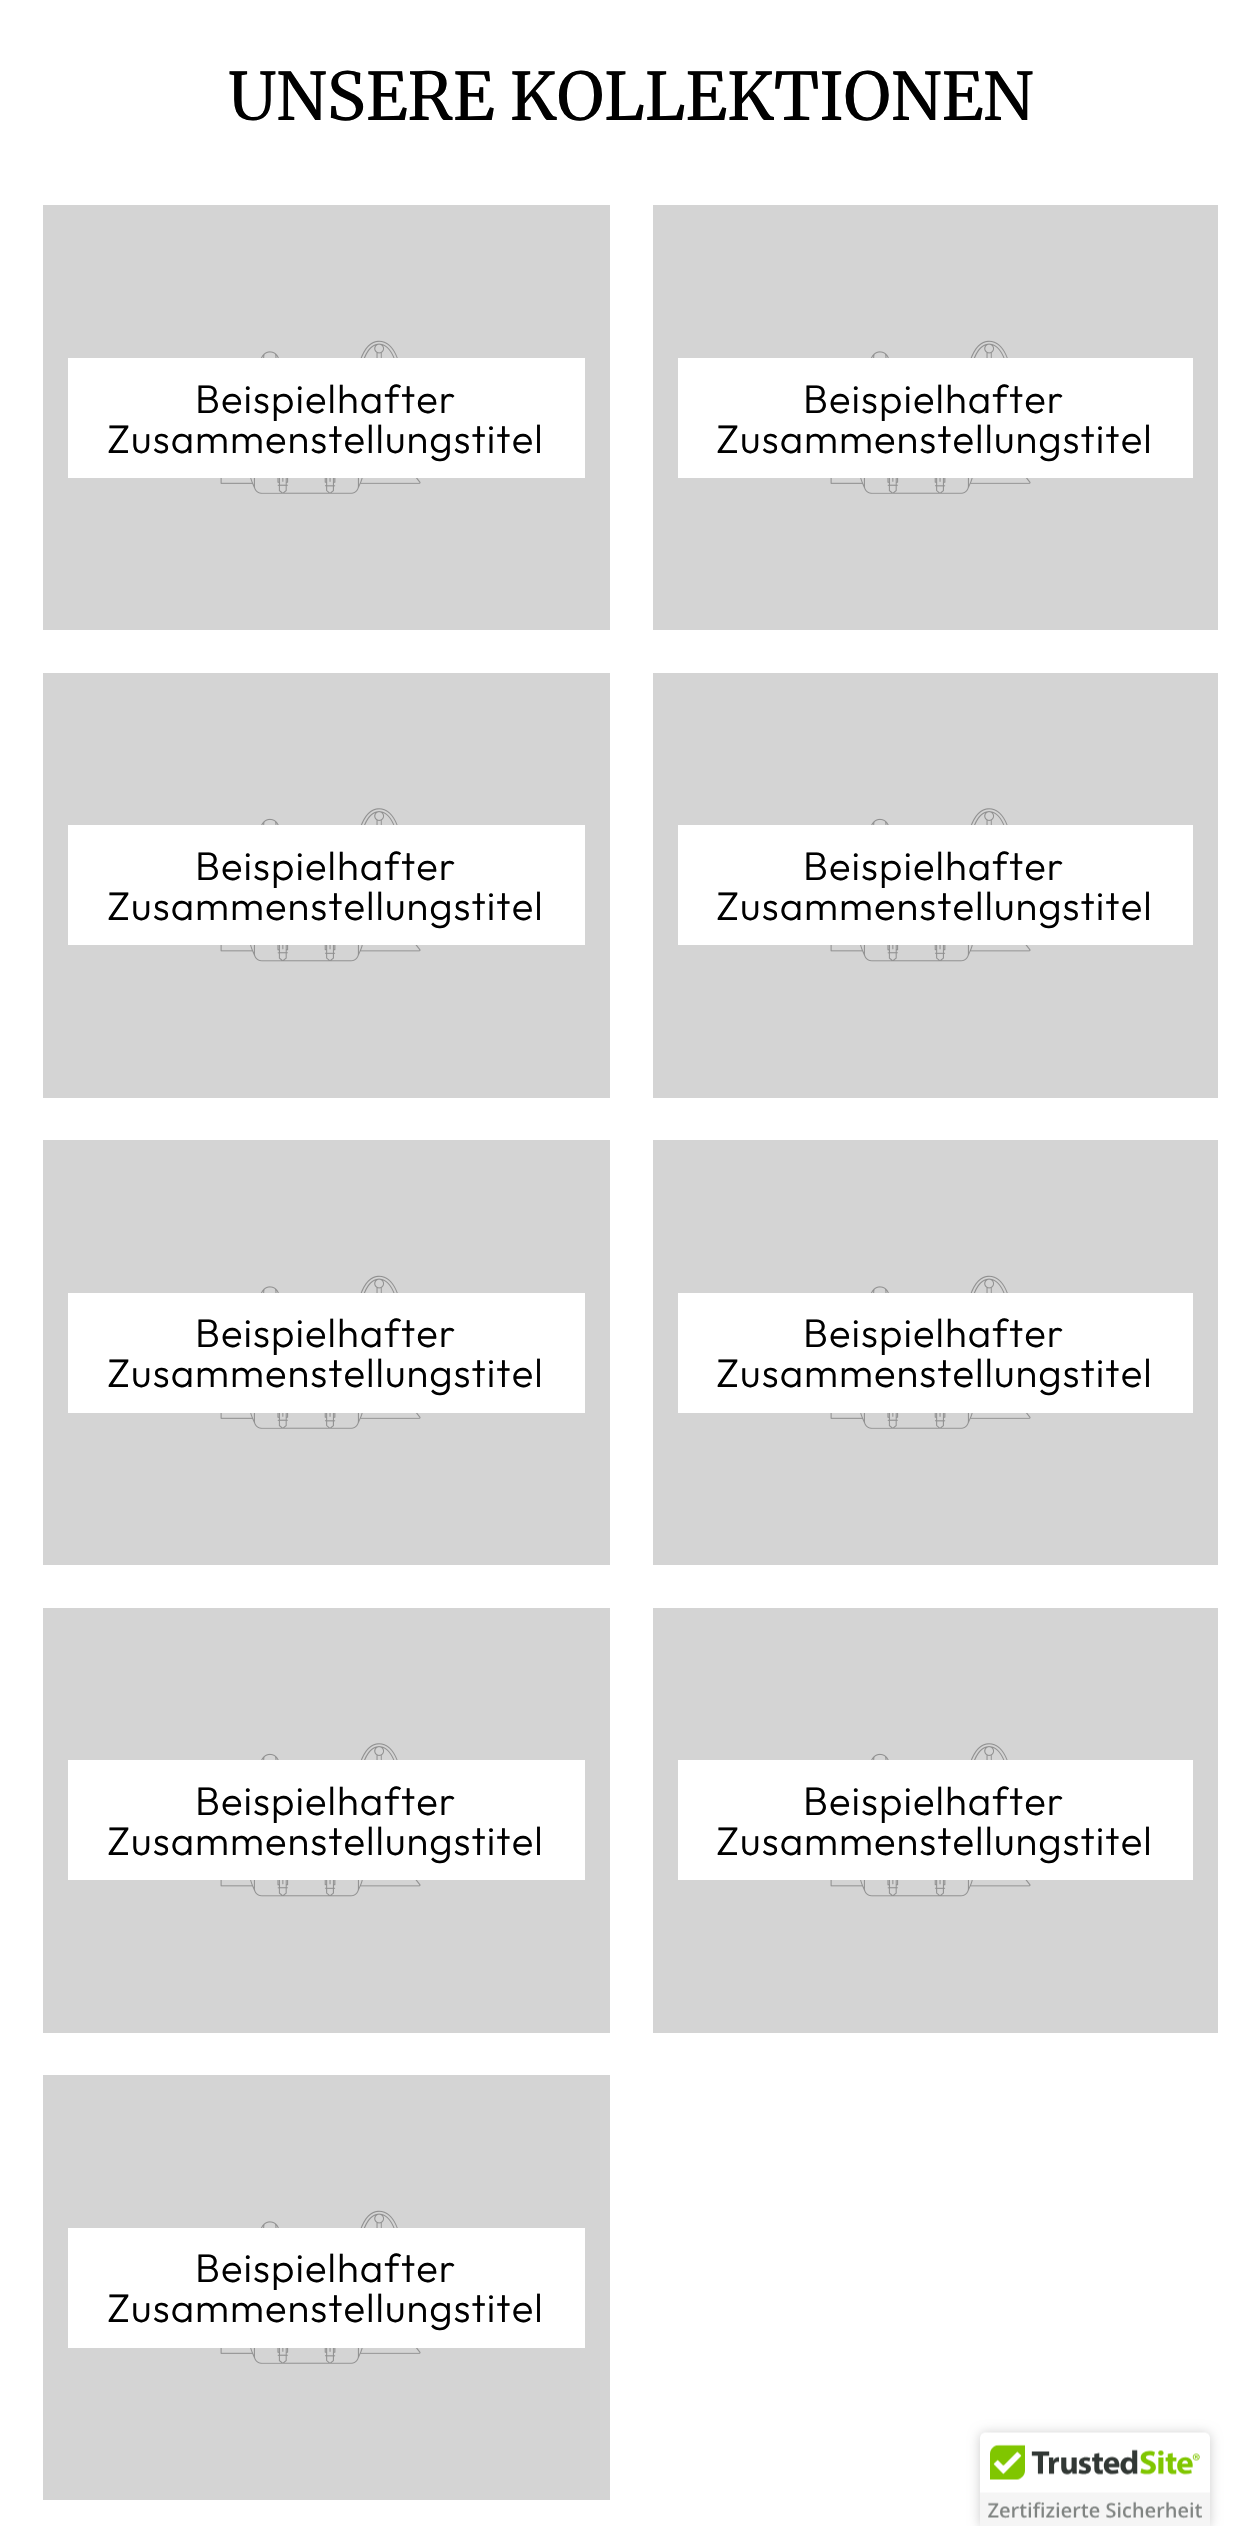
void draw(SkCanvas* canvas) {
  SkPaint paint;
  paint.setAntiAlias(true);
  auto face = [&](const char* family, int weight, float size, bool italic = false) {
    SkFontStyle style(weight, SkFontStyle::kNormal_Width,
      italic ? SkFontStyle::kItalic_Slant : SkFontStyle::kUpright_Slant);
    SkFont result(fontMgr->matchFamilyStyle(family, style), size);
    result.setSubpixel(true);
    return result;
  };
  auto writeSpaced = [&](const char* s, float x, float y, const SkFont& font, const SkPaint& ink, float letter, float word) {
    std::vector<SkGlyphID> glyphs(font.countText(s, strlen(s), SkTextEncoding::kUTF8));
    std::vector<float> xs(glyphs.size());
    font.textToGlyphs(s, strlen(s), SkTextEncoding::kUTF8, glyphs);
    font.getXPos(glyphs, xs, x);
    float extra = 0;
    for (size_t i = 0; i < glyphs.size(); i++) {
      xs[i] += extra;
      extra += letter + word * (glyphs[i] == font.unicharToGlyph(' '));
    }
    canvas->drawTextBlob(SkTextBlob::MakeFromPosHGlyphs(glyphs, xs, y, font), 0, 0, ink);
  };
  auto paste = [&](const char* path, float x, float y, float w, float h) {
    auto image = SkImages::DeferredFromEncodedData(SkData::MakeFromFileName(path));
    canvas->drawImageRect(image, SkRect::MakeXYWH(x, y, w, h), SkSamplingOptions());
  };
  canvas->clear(0xffffffff);
  paint.setColor(0xffd4d4d4);
  canvas->drawRect(SkRect::MakeXYWH(43, 205, 567, 425), paint);
  paste("img/1.png", 220, 340, 201, 154);
  paint.setColor(0xffffffff);
  canvas->drawRect(SkRect::MakeXYWH(68, 358, 517, 120), paint);
  paint.setColor(0xffd4d4d4);
  canvas->drawRect(SkRect::MakeXYWH(653, 205, 565, 425), paint);
  paste("img/1.png", 830, 340, 201, 154);
  paint.setColor(0xffffffff);
  canvas->drawRect(SkRect::MakeXYWH(678, 358, 515, 120), paint);
  paint.setColor(0xffd4d4d4);
  canvas->drawRect(SkRect::MakeXYWH(43, 673, 567, 425), paint);
  paste("img/2.png", 220, 808, 201, 154);
  paint.setColor(0xffffffff);
  canvas->drawRect(SkRect::MakeXYWH(68, 825, 517, 120), paint);
  paint.setColor(0xffd4d4d4);
  canvas->drawRect(SkRect::MakeXYWH(653, 673, 565, 425), paint);
  paste("img/2.png", 830, 808, 201, 154);
  paint.setColor(0xffffffff);
  canvas->drawRect(SkRect::MakeXYWH(678, 825, 515, 120), paint);
  paint.setColor(0xffd4d4d4);
  canvas->drawRect(SkRect::MakeXYWH(43, 1140, 567, 425), paint);
  paste("img/1.png", 220, 1275, 201, 154);
  paint.setColor(0xffffffff);
  canvas->drawRect(SkRect::MakeXYWH(68, 1293, 517, 120), paint);
  paint.setColor(0xffd4d4d4);
  canvas->drawRect(SkRect::MakeXYWH(653, 1140, 565, 425), paint);
  paste("img/1.png", 830, 1275, 201, 154);
  paint.setColor(0xffffffff);
  canvas->drawRect(SkRect::MakeXYWH(678, 1293, 515, 120), paint);
  paint.setColor(0xffd4d4d4);
  canvas->drawRect(SkRect::MakeXYWH(43, 1608, 567, 425), paint);
  paste("img/2.png", 220, 1743, 201, 154);
  paint.setColor(0xffffffff);
  canvas->drawRect(SkRect::MakeXYWH(68, 1760, 517, 120), paint);
  paint.setColor(0xffd4d4d4);
  canvas->drawRect(SkRect::MakeXYWH(653, 1608, 565, 425), paint);
  paste("img/2.png", 830, 1743, 201, 154);
  paint.setColor(0xffffffff);
  canvas->drawRect(SkRect::MakeXYWH(678, 1760, 515, 120), paint);
  paint.setColor(0xffd4d4d4);
  canvas->drawRect(SkRect::MakeXYWH(43, 2075, 567, 425), paint);
  paste("img/1.png", 220, 2210, 201, 154);
  paint.setColor(0xffffffff);
  canvas->drawRect(SkRect::MakeXYWH(68, 2228, 517, 120), paint);
  paint.setColor(0x33000000);
  paint.setMaskFilter(SkMaskFilter::MakeBlur(kNormal_SkBlurStyle, 6));
  canvas->drawRoundRect(SkRect::MakeXYWH(980, 2433, 230, 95), 5, 5, paint);
  paint.setMaskFilter(nullptr);
  paste("img/3.png", 980, 2432, 230, 94);
  auto f0 = face("Merriweather", 400, 65.75f);
  paint.setColor(0xff000000);
  canvas->drawString("UNSERE KOLLEKTIONEN", 228, 120, f0, paint);
  auto f1 = face("Outfit", 300, 40);
  {
    const struct { const char* s; float x, y; } items[] = {
      {"Beispielhafter", 195, 413},
      {"Zusammenstellungstitel", 107, 453},
      {"Beispielhafter", 803, 413},
      {"Zusammenstellungstitel", 716, 453},
      {"Beispielhafter", 195, 880},
      {"Zusammenstellungstitel", 107, 920},
      {"Beispielhafter", 803, 880},
      {"Zusammenstellungstitel", 716, 920},
      {"Beispielhafter", 195, 1347},
      {"Zusammenstellungstitel", 107, 1387},
      {"Beispielhafter", 803, 1347},
      {"Zusammenstellungstitel", 716, 1387},
      {"Beispielhafter", 195, 1815},
      {"Zusammenstellungstitel", 107, 1855},
      {"Beispielhafter", 803, 1815},
      {"Zusammenstellungstitel", 716, 1855},
      {"Beispielhafter", 195, 2282},
      {"Zusammenstellungstitel", 107, 2322},
    };
    for (auto [s, x, y] : items) {
      writeSpaced(s, x, y, f1, paint, 1, 0);
    }
  }
}
